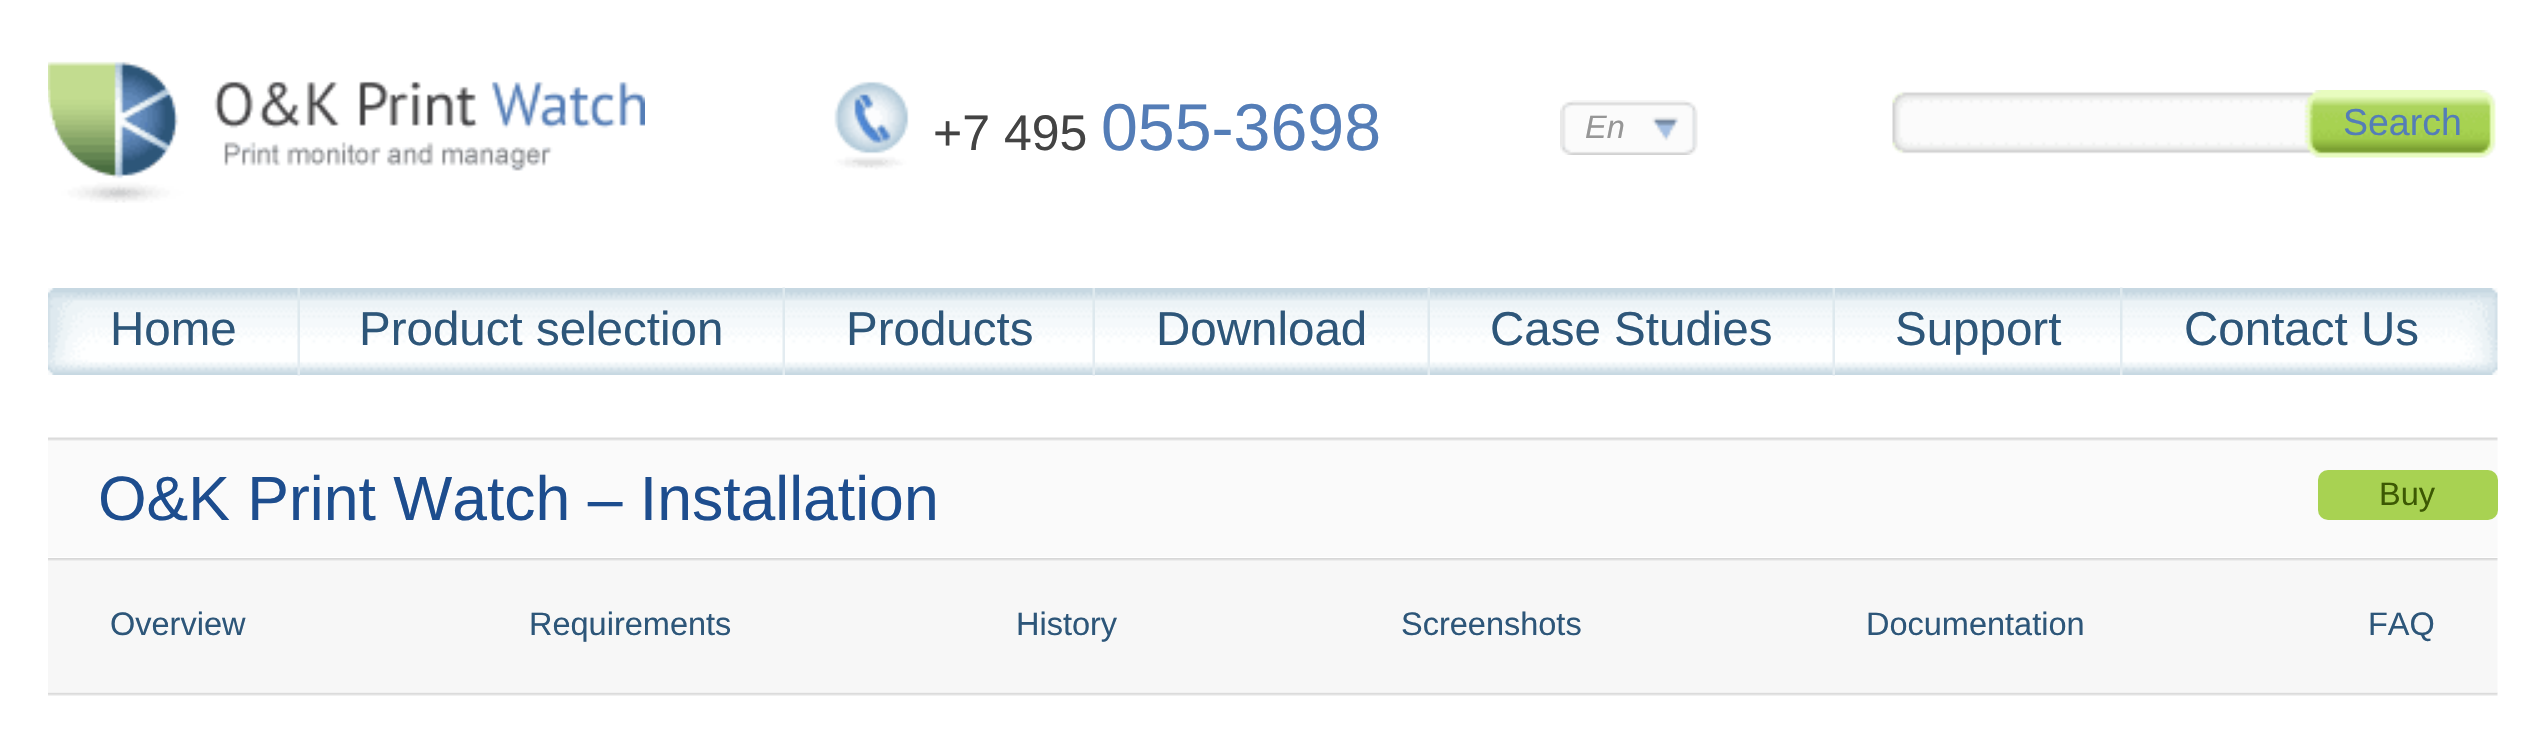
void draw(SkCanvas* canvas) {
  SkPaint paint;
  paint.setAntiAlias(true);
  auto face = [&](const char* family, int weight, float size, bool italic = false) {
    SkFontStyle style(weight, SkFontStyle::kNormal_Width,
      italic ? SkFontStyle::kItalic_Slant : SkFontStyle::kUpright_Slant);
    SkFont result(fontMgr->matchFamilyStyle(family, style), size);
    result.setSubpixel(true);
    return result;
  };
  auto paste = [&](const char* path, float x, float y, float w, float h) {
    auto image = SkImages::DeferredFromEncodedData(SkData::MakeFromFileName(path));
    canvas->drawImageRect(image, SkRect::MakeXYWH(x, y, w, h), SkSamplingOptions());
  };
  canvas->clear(0xffffffff);
  paste("img/1.png", 48, 61, 597, 142);
  paste("img/2.png", 834, 81, 75, 89);
  paste("img/3.png", 1560, 100, 138, 55);
  paste("img/4.png", 1892, 90, 604, 68);
  paste("img/5.png", 48, 288, 2450, 87);
  paste("img/6.png", 297, 288, 3, 88);
  paste("img/7.png", 782, 287, 3, 88);
  paste("img/6.png", 1092, 288, 3, 88);
  paste("img/7.png", 1427, 287, 3, 88);
  paste("img/8.png", 1832, 288, 3, 88);
  paste("img/9.png", 2120, 287, 3, 88);
  paste("img/10.png", 48, 437, 2450, 120);
  paint.setColor(0xffa8d252);
  canvas->drawRoundRect(SkRect::MakeXYWH(2318, 470, 180, 50), 10, 10, paint);
  paste("img/12.png", 48, 692, 2450, 4);
  paste("img/11.png", 48, 558, 2450, 135);
  auto f0 = face("Liberation Sans", 400, 50);
  paint.setColor(0xff434343);
  canvas->drawString("+7 495", 933, 150, f0, paint);
  auto f1 = face("Liberation Sans", 400, 66.25f);
  paint.setColor(0xff547db7);
  canvas->drawString("055-3698", 1101, 150, f1, paint);
  auto f2 = face("Liberation Sans", 400, 32.5f, true);
  paint.setColor(0xff969696);
  canvas->drawString("En", 1585, 138, f2, paint);
  auto f3 = face("Liberation Sans", 400, 37.5f);
  paint.setColor(0xff547db7);
  canvas->drawString("Search", 2343, 135, f3, paint);
  auto f4 = face("Liberation Sans", 400, 47.5f);
  paint.setColor(0xff2d5679);
  {
    const struct { const char* s; float x, y; } items[] = {
      {"Home", 110, 345},
      {"Product selection", 359, 345},
      {"Products", 846, 345},
      {"Download", 1156, 345},
      {"Case Studies", 1490, 345},
      {"Support", 1895, 345},
      {"Contact Us", 2184, 345},
    };
    for (auto [s, x, y] : items) {
      canvas->drawString(s, x, y, f4, paint);
    }
  }
  auto f5 = face("Liberation Sans", 400, 62.5f);
  paint.setColor(0xff1d4d8e);
  canvas->drawString("O&K Print Watch – Installation", 98, 520, f5, paint);
  auto f6 = face("Liberation Sans", 400, 32.5f);
  paint.setColor(0xff3c5903);
  canvas->drawString("Buy", 2379, 505, f6, paint);
  paint.setColor(0xff2d5679);
  {
    const struct { const char* s; float x, y; } items[] = {
      {"Overview", 110, 635},
      {"Requirements", 529, 635},
      {"History", 1016, 635},
      {"Screenshots", 1401, 635},
      {"Documentation", 1866, 635},
      {"FAQ", 2368, 635},
    };
    for (auto [s, x, y] : items) {
      canvas->drawString(s, x, y, f6, paint);
    }
  }
}
